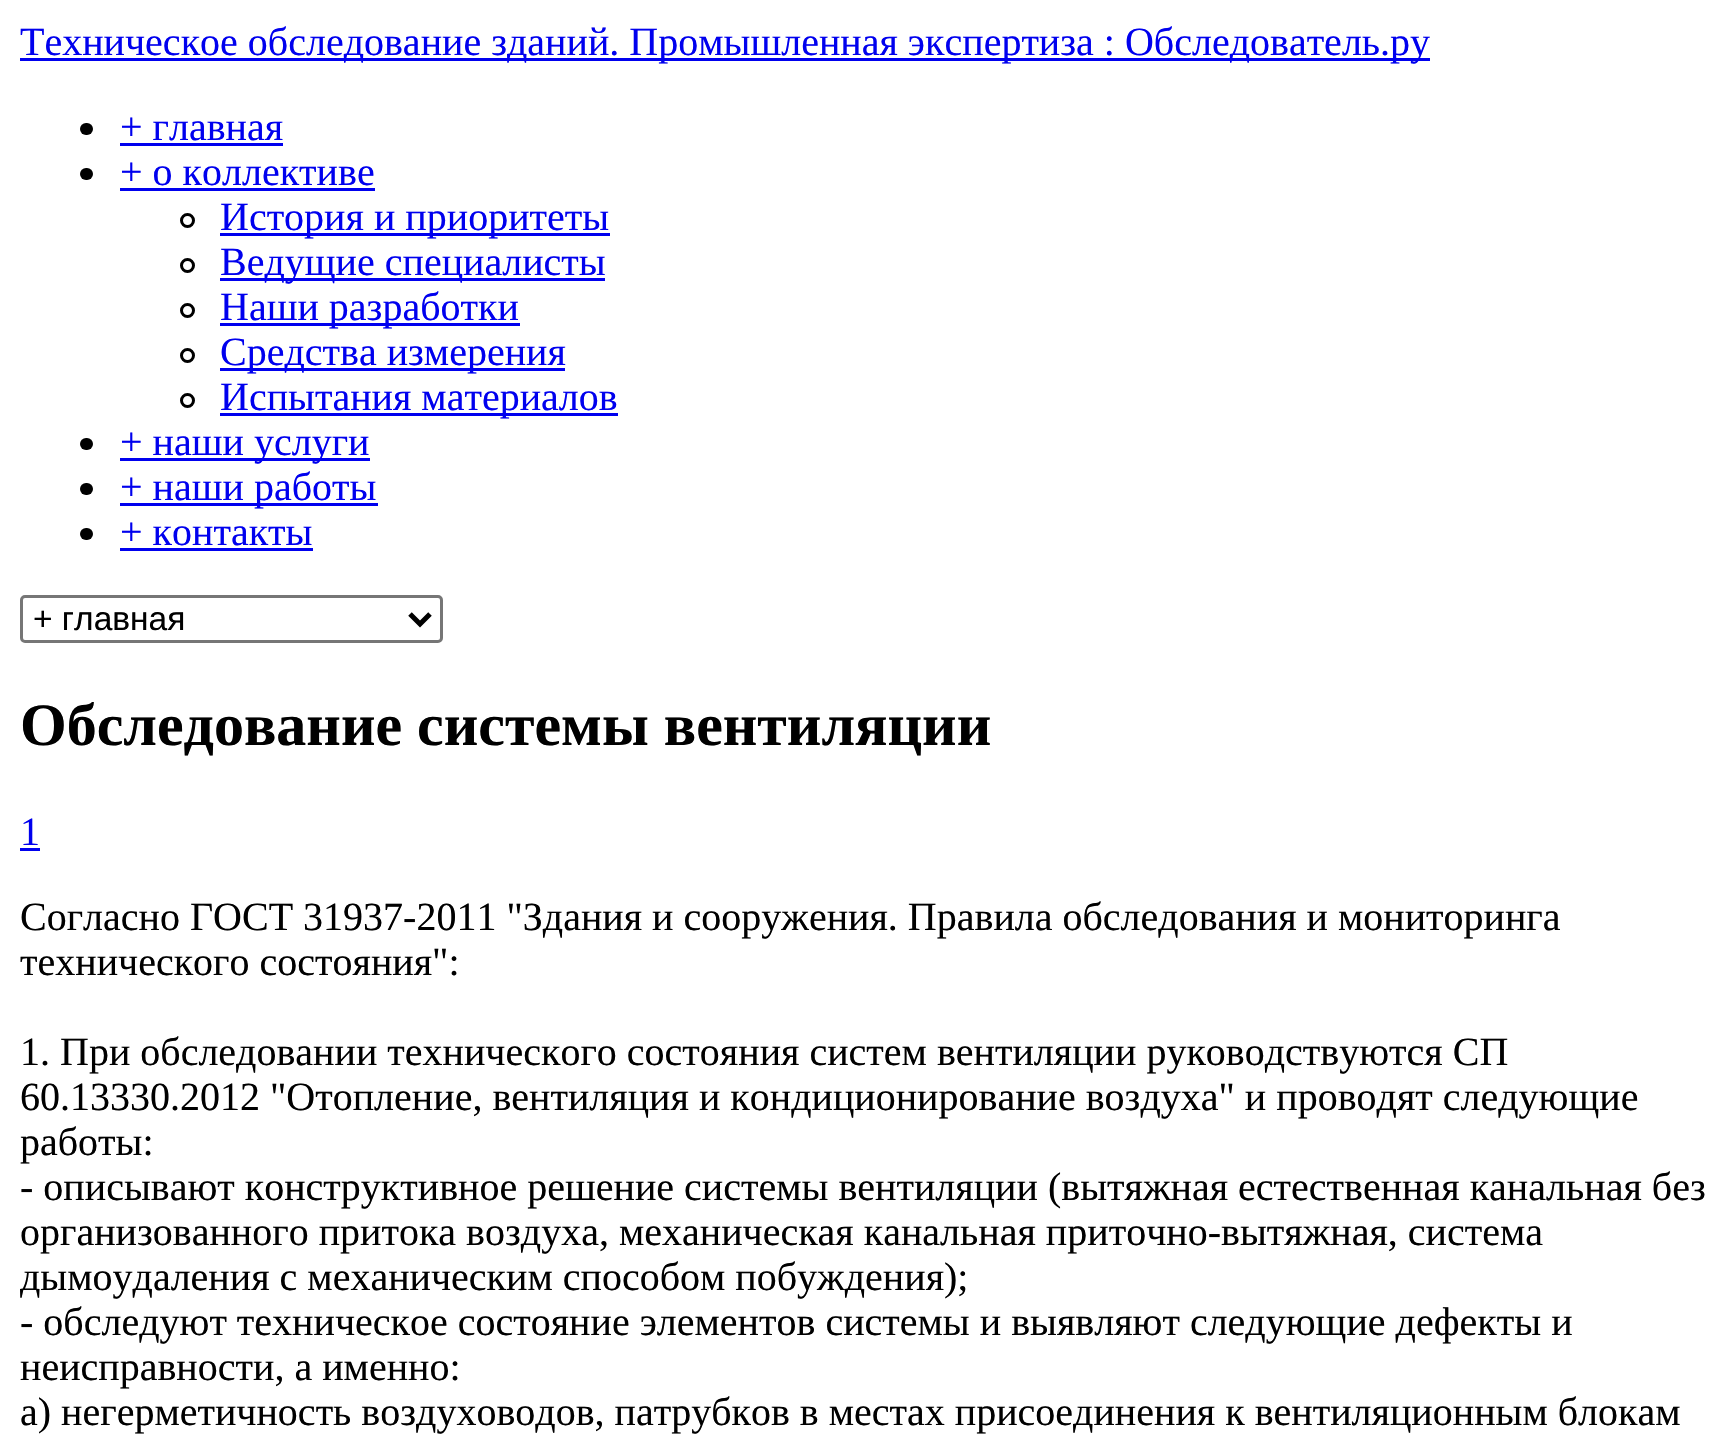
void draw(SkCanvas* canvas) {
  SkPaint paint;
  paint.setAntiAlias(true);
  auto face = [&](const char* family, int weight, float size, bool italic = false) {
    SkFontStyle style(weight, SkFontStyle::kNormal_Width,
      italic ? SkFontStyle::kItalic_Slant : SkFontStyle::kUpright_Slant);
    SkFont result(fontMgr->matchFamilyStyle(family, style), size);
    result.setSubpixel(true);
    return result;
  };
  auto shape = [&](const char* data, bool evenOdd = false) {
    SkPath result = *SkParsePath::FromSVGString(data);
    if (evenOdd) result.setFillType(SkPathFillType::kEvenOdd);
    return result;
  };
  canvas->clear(0xffffffff);
  paint.setColor(0xff0000ee);
  canvas->drawRect(SkRect::MakeXYWH(20, 58, 1410, 3), paint);
  paint.setColor(0xff000000);
  canvas->drawRoundRect(SkRect::MakeXYWH(80, 123, 13, 12), 6, 6, paint);
  paint.setColor(0xff0000ee);
  canvas->drawRect(SkRect::MakeXYWH(120, 143, 163, 3), paint);
  paint.setColor(0xff000000);
  canvas->drawRoundRect(SkRect::MakeXYWH(80, 168, 13, 12), 6, 6, paint);
  paint.setColor(0xff0000ee);
  canvas->drawRect(SkRect::MakeXYWH(120, 188, 255, 3), paint);
  paint.setStroke(true);
  paint.setStrokeWidth(3);
  paint.setColor(0xff000000);
  canvas->drawCircle(187.5f, 220.5f, 6, paint);
  paint.setStroke(false);
  paint.setColor(0xff0000ee);
  canvas->drawRect(SkRect::MakeXYWH(220, 233, 390, 3), paint);
  paint.setStroke(true);
  paint.setColor(0xff000000);
  canvas->drawCircle(187.5f, 265.5f, 6, paint);
  paint.setStroke(false);
  paint.setColor(0xff0000ee);
  canvas->drawRect(SkRect::MakeXYWH(220, 278, 385, 3), paint);
  paint.setStroke(true);
  paint.setColor(0xff000000);
  canvas->drawCircle(187.5f, 310.5f, 6, paint);
  paint.setStroke(false);
  paint.setColor(0xff0000ee);
  canvas->drawRect(SkRect::MakeXYWH(220, 323, 300, 3), paint);
  paint.setStroke(true);
  paint.setColor(0xff000000);
  canvas->drawCircle(187.5f, 355.5f, 6, paint);
  paint.setStroke(false);
  paint.setColor(0xff0000ee);
  canvas->drawRect(SkRect::MakeXYWH(220, 368, 345, 3), paint);
  paint.setStroke(true);
  paint.setColor(0xff000000);
  canvas->drawCircle(187.5f, 400.5f, 6, paint);
  paint.setStroke(false);
  paint.setColor(0xff0000ee);
  canvas->drawRect(SkRect::MakeXYWH(220, 413, 398, 3), paint);
  paint.setColor(0xff000000);
  canvas->drawRoundRect(SkRect::MakeXYWH(80, 438, 13, 12), 6, 6, paint);
  paint.setColor(0xff0000ee);
  canvas->drawRect(SkRect::MakeXYWH(120, 458, 250, 3), paint);
  paint.setColor(0xff000000);
  canvas->drawRoundRect(SkRect::MakeXYWH(80, 483, 13, 12), 6, 6, paint);
  paint.setColor(0xff0000ee);
  canvas->drawRect(SkRect::MakeXYWH(120, 503, 258, 3), paint);
  paint.setColor(0xff000000);
  canvas->drawRoundRect(SkRect::MakeXYWH(80, 528, 13, 12), 6, 6, paint);
  paint.setColor(0xff0000ee);
  canvas->drawRect(SkRect::MakeXYWH(120, 548, 193, 3), paint);
  paint.setStroke(true);
  paint.setColor(0xff767676);
  canvas->drawRoundRect(SkRect::MakeXYWH(21.5f, 596.5f, 420, 45), 3.5f, 3.5f, paint);
  paint.setStrokeWidth(5);
  paint.setColor(0xff000000);
  canvas->drawPath(shape("M410 614L420 624L430 614"), paint);
  paint.setStroke(false);
  paint.setColor(0xff0000ee);
  canvas->drawRect(SkRect::MakeXYWH(20, 848, 20, 3), paint);
  auto f0 = face("Liberation Serif", 400, 40);
  {
    const struct { const char* s; float x, y; } items[] = {
      {"Техническое обследование зданий. Промышленная экспертиза : Обследователь.ру", 20, 55},
      {"+ главная", 120, 140},
      {"+ о коллективе", 120, 185},
      {"История и приоритеты", 220, 230},
      {"Ведущие специалисты", 220, 275},
      {"Наши разработки", 220, 320},
      {"Средства измерения", 220, 365},
      {"Испытания материалов", 220, 410},
      {"+ наши услуги", 120, 455},
      {"+ наши работы", 120, 500},
      {"+ контакты", 120, 545},
    };
    for (auto [s, x, y] : items) {
      canvas->drawString(s, x, y, f0, paint);
    }
  }
  auto f1 = face("Liberation Sans", 400, 33.5f);
  paint.setColor(0xff000000);
  canvas->drawString("+ главная", 33, 630, f1, paint);
  auto f2 = face("Liberation Serif", 700, 60);
  canvas->drawString("Обследование системы вентиляции", 20, 745, f2, paint);
  paint.setColor(0xff0000ee);
  canvas->drawString("1", 20, 845, f0, paint);
  paint.setColor(0xff000000);
  {
    const struct { const char* s; float x, y; } items[] = {
      {"Согласно ГОСТ 31937-2011 \"Здания и сооружения. Правила обследования и мониторинга", 20, 930},
      {"технического состояния\":", 20, 975},
      {"1. При обследовании технического состояния систем вентиляции руководствуются СП", 20, 1065},
      {"60.13330.2012 \"Отопление, вентиляция и кондиционирование воздуха\" и проводят следующие", 20, 1110},
      {"работы:", 20, 1155},
      {"- описывают конструктивное решение системы вентиляции (вытяжная естественная канальная без", 20, 1200},
      {"организованного притока воздуха, механическая канальная приточно-вытяжная, система", 20, 1245},
      {"дымоудаления с механическим способом побуждения);", 20, 1290},
      {"- обследуют техническое состояние элементов системы и выявляют следующие дефекты и", 20, 1335},
      {"неисправности, а именно:", 20, 1380},
      {"а) негерметичность воздуховодов, патрубков в местах присоединения к вентиляционным блокам", 20, 1425},
    };
    for (auto [s, x, y] : items) {
      canvas->drawString(s, x, y, f0, paint);
    }
  }
}
